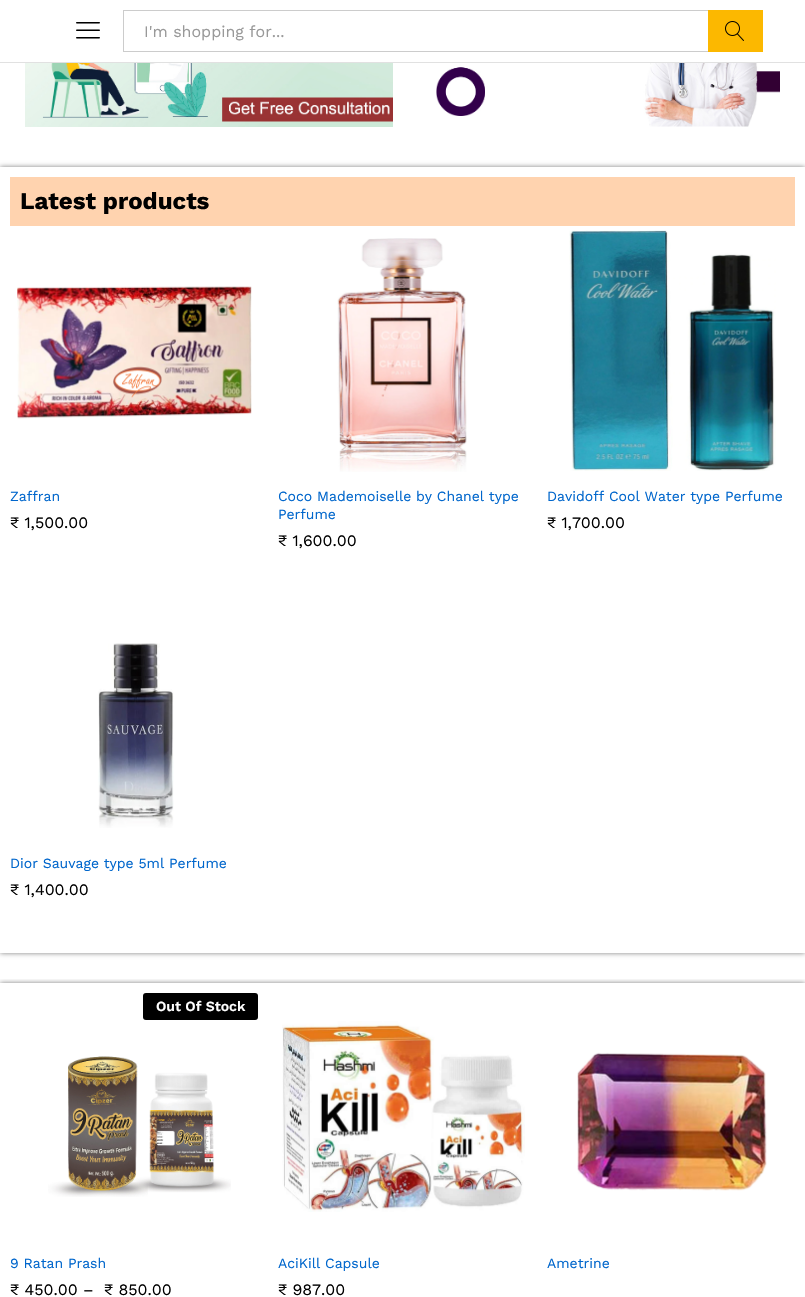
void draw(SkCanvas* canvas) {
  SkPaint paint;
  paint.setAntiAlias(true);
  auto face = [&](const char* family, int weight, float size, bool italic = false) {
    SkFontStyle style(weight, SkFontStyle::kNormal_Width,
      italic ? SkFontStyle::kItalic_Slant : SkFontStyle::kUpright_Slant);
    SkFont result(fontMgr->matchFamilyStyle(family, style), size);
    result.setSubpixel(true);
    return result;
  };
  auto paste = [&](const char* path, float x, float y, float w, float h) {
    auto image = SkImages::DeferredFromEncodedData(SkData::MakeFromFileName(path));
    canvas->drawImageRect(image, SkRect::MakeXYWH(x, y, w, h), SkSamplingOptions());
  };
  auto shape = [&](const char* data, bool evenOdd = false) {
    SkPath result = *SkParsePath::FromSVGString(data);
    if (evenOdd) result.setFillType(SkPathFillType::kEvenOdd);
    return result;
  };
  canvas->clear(0xffffffff);
  paint.setColor(0xffe1e1e1);
  canvas->drawRect(SkRect::MakeXYWH(0, 62, 805, 1), paint);
  paste("img/1.png", 76, 22, 24, 17);
  {
    const struct { float x, y, w, h; SkColor color; } items[] = {
      {123, 10, 585, 1, 0xffcccccc},
      {123, 51, 585, 1, 0xffcccccc},
      {123, 10, 1, 42, 0xffcccccc},
      {708, 10, 55, 42, 0xfffcb800},
    };
    for (auto [x, y, w, h, color] : items) {
      paint.setColor(color);
      canvas->drawRect(SkRect::MakeXYWH(x, y, w, h), paint);
    }
  }
  paste("img/2.png", 725, 21, 19, 20);
  paste("img/3.png", 25, 63, 368, 64);
  paste("img/4.png", 436, 63, 344, 64);
  canvas->save();
  canvas->clipPath(shape("M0 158H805V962H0ZM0 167H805V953H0Z", true), true);
  paint.setColor(0x80000000);
  paint.setMaskFilter(SkMaskFilter::MakeBlur(kNormal_SkBlurStyle, 2.5f));
  canvas->drawRect(SkRect::MakeXYWH(0, 167, 805, 786), paint);
  paint.setMaskFilter(nullptr);
  canvas->restore();
  paint.setColor(0xffffd3af);
  canvas->drawRect(SkRect::MakeXYWH(10, 177, 785, 49), paint);
  paste("img/5.png", 17, 286, 235, 133);
  paste("img/6.png", 337, 238, 130, 234);
  paste("img/7.png", 569, 230, 207, 241);
  paste("img/8.png", 98, 643, 76, 185);
  canvas->save();
  canvas->clipRect(SkRect::MakeXYWH(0, 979, 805, 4));
  paint.setColor(0x80000000);
  paint.setMaskFilter(SkMaskFilter::MakeBlur(kNormal_SkBlurStyle, 2.5f));
  canvas->drawRect(SkRect::MakeXYWH(0, 983, 805, 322), paint);
  paint.setMaskFilter(nullptr);
  canvas->restore();
  paint.setColor(0xff000000);
  canvas->drawRoundRect(SkRect::MakeXYWH(143, 993, 115, 27), 3, 3, paint);
  paste("img/9.png", 48, 1056, 183, 141);
  paste("img/10.png", 282, 1021, 243, 191);
  paste("img/11.png", 577, 1052, 190, 139);
  auto f0 = face("Work Sans", 400, 16);
  paint.setColor(0xff999999);
  canvas->drawString("I'm shopping for...", 144, 37, f0, paint);
  auto f1 = face("Work Sans", 700, 24);
  paint.setColor(0xff000000);
  canvas->drawString("Latest products", 20, 209, f1, paint);
  auto f2 = face("Work Sans", 400, 14);
  paint.setColor(0xff0066cc);
  canvas->drawString("Zaffran", 10, 501, f2, paint);
  paint.setColor(0xff000000);
  canvas->drawString("₹ 1,500.00", 10, 528, f0, paint);
  paint.setColor(0xff0066cc);
  canvas->drawString("Coco Mademoiselle by Chanel type", 278, 501, f2, paint);
  canvas->drawString("Perfume", 278, 519, f2, paint);
  paint.setColor(0xff000000);
  canvas->drawString("₹ 1,600.00", 278, 546, f0, paint);
  paint.setColor(0xff0066cc);
  canvas->drawString("Davidoff Cool Water type Perfume", 547, 501, f2, paint);
  paint.setColor(0xff000000);
  canvas->drawString("₹ 1,700.00", 547, 528, f0, paint);
  paint.setColor(0xff0066cc);
  canvas->drawString("Dior Sauvage type 5ml Perfume", 10, 868, f2, paint);
  paint.setColor(0xff000000);
  canvas->drawString("₹ 1,400.00", 10, 895, f0, paint);
  auto f3 = face("Work Sans", 600, 14);
  paint.setColor(0xffffffff);
  canvas->drawString("Out Of Stock", 156, 1011, f3, paint);
  paint.setColor(0xff0066cc);
  canvas->drawString("9 Ratan Prash", 10, 1268, f2, paint);
  paint.setColor(0xff000000);
  canvas->drawString("₹ 450.00 –", 10, 1295, f0, paint);
  canvas->drawString("₹ 850.00", 104, 1295, f0, paint);
  paint.setColor(0xff0066cc);
  canvas->drawString("AciKill Capsule", 278, 1268, f2, paint);
  paint.setColor(0xff000000);
  canvas->drawString("₹ 987.00", 278, 1295, f0, paint);
  paint.setColor(0xff0066cc);
  canvas->drawString("Ametrine", 547, 1268, f2, paint);
}
